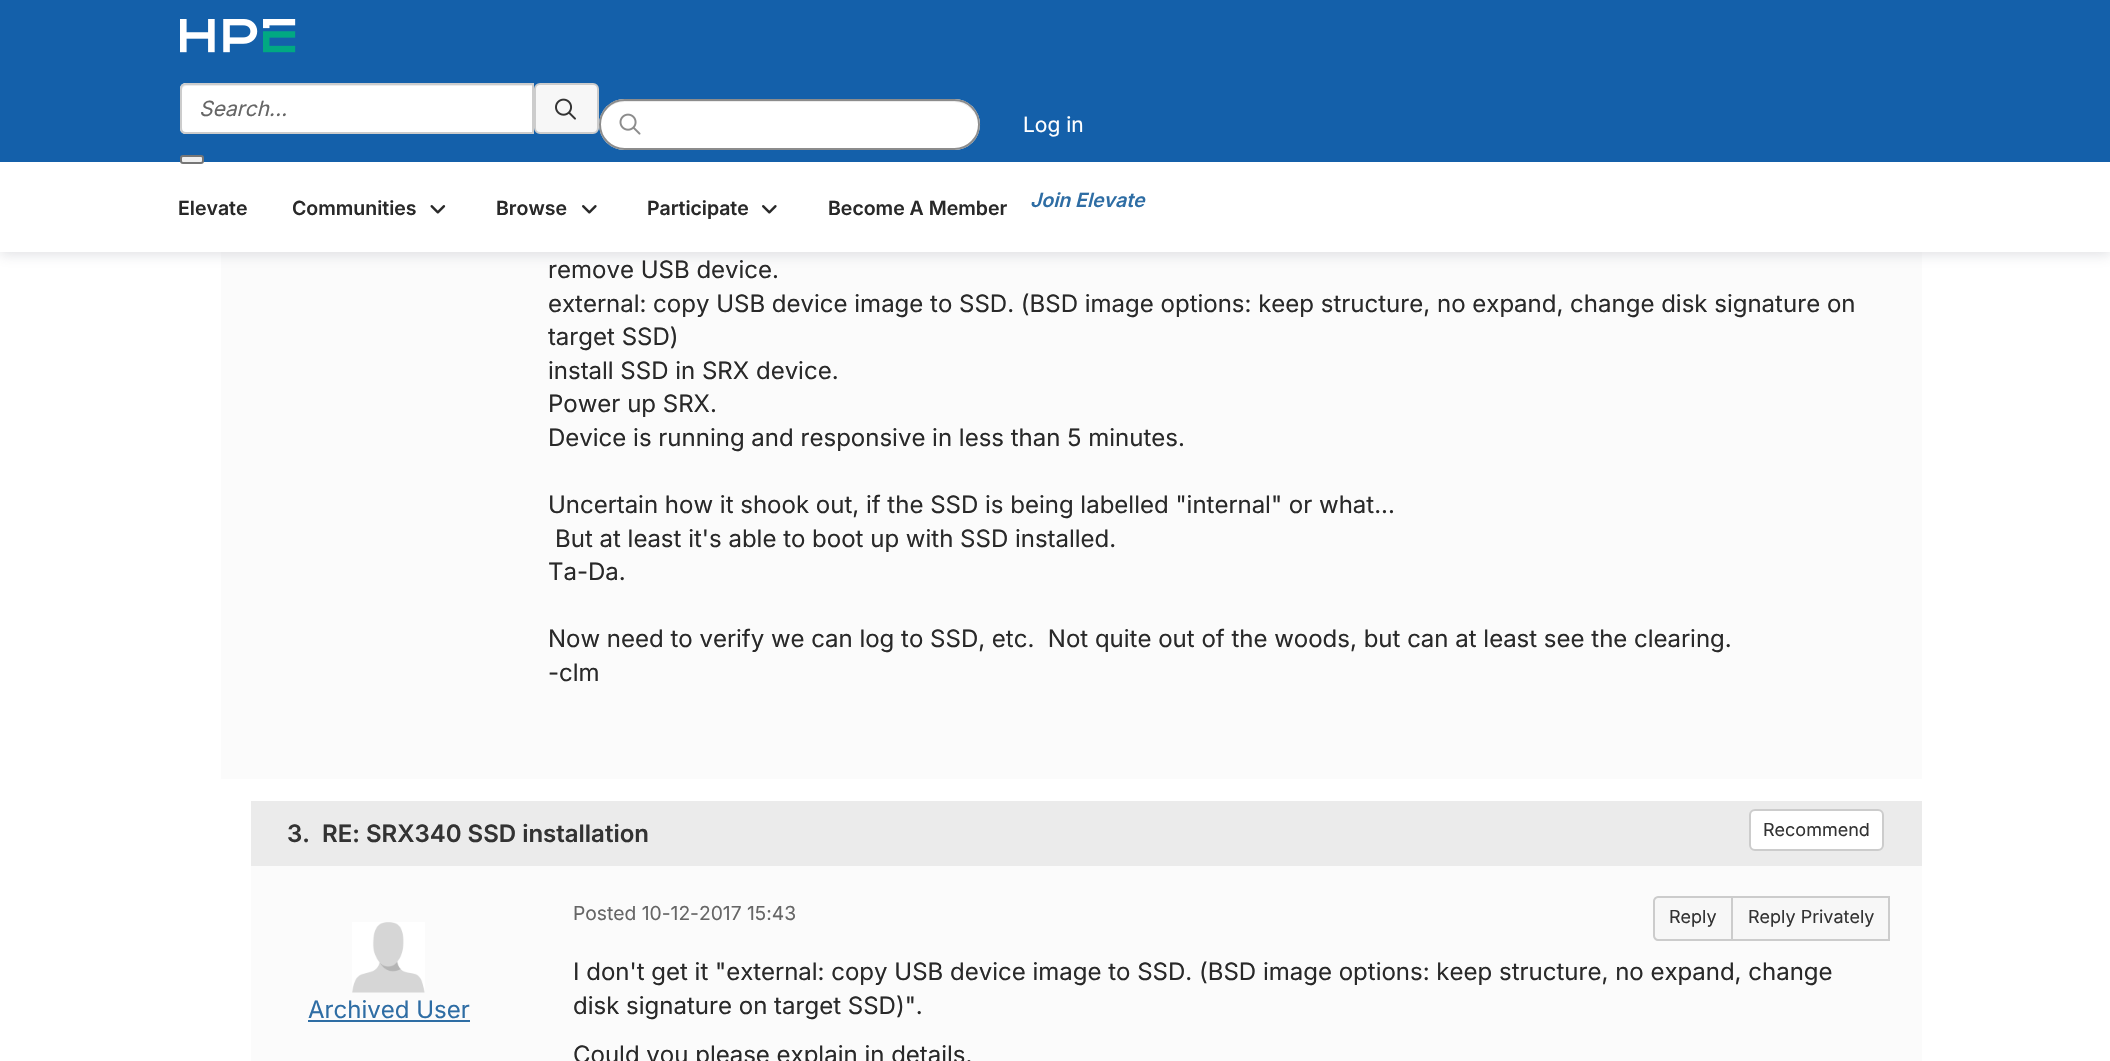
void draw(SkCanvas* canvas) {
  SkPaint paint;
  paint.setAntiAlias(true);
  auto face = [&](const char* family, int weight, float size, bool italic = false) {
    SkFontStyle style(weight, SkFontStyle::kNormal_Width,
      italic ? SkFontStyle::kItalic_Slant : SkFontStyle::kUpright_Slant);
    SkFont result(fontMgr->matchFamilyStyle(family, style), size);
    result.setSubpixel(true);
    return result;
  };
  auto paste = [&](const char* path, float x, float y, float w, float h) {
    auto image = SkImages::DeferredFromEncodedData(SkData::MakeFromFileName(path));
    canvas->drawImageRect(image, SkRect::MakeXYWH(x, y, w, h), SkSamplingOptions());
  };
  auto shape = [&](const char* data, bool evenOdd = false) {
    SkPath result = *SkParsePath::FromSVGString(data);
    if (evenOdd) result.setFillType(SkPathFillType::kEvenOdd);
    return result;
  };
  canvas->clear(0xffffffff);
  paint.setColor(0xfffbfbfb);
  canvas->drawRect(SkRect::MakeXYWH(221, 252, 1701, 527), paint);
  paint.setColor(0x3d838791);
  paint.setMaskFilter(SkMaskFilter::MakeBlur(kNormal_SkBlurStyle, 6));
  canvas->drawRect(SkRect::MakeXYWH(0, 3, 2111, 252), paint);
  paint.setMaskFilter(nullptr);
  paint.setColor(0xffffffff);
  canvas->drawRect(SkRect::MakeXYWH(0, 162, 2110, 90), paint);
  paint.setColor(0xff1460aa);
  canvas->drawRect(SkRect::MakeXYWH(0, 0, 2110, 162), paint);
  paste("img/1.png", 180, 19, 116, 34);
  paint.setColor(0xffffffff);
  canvas->drawPath(shape("M186 83H534V134H186C182.5 134 180 131.5 180 128V89C180 85.5 182.5 83 186 83Z"), paint);
  paint.setColor(0xffececec);
  canvas->drawPath(shape("M186 86H532V132H533V84H187C184 84 182 86 182 89V90C182 88 184 86 186 86Z"), paint);
  paint.setStroke(true);
  paint.setStrokeWidth(2);
  paint.setColor(0xffcccccc);
  canvas->drawPath(shape("M186 84H533V133H186C183 133 181 131 181 128V89C181 86 183 84 186 84Z"), paint);
  paint.setStroke(false);
  paint.setColor(0xfff7f7f7);
  canvas->drawRoundRect(SkRect::MakeXYWH(535, 84, 63, 49), 5, 5, paint);
  paint.setStroke(true);
  paint.setColor(0xffcccccc);
  canvas->drawRoundRect(SkRect::MakeXYWH(535, 84, 63, 49), 5, 5, paint);
  paste("img/2.png", 555, 98, 21, 22);
  paint.setStroke(false);
  paint.setColor(0xffefefef);
  canvas->drawRoundRect(SkRect::MakeXYWH(181, 156, 22, 7), 2, 2, paint);
  paint.setStroke(true);
  paint.setColor(0xff767676);
  canvas->drawRoundRect(SkRect::MakeXYWH(181, 156, 22, 7), 2, 2, paint);
  paint.setStroke(false);
  paint.setColor(0xffffffff);
  canvas->drawRoundRect(SkRect::MakeXYWH(599, 99, 381, 51), 25.5f, 25.5f, paint);
  paint.setColor(0xffececec);
  canvas->drawPath(shape("M624 102H954C967 102 978 113 978 126C978 112 967 101 954 101H624C611 101 600 112 600 126C600 113 611 102 624 102Z"), paint);
  paint.setStroke(true);
  paint.setColor(0xff8c8c8c);
  canvas->drawRoundRect(SkRect::MakeXYWH(600, 100, 379, 49), 24.5f, 24.5f, paint);
  paste("img/3.png", 619, 113, 22, 22);
  paste("img/4.png", 430, 205, 16, 9);
  paste("img/5.png", 582, 205, 15, 9);
  paste("img/5.png", 762, 205, 15, 9);
  paint.setStroke(false);
  paint.setColor(0xfffbfbfb);
  canvas->drawRect(SkRect::MakeXYWH(251, 866, 1671, 195), paint);
  paint.setColor(0xffebebeb);
  canvas->drawRect(SkRect::MakeXYWH(251, 801, 1671, 65), paint);
  paint.setColor(0xffffffff);
  canvas->drawRoundRect(SkRect::MakeXYWH(1750, 810, 133, 40), 5, 5, paint);
  paint.setStroke(true);
  paint.setColor(0xffcccccc);
  canvas->drawRoundRect(SkRect::MakeXYWH(1750, 810, 133, 40), 5, 5, paint);
  paste("img/6.png", 352, 922, 73, 71);
  paint.setStroke(false);
  paint.setColor(0xff2e6da4);
  canvas->drawRect(SkRect::MakeXYWH(308, 1020, 162, 2), paint);
  paint.setColor(0xfff7f7f7);
  canvas->drawPath(shape("M1658 897H1732V940H1658C1656 940 1654 938 1654 936V901C1654 899 1656 897 1658 897Z"), paint);
  paint.setStroke(true);
  paint.setColor(0xffcccccc);
  canvas->drawPath(shape("M1658 897H1732V940H1658C1656 940 1654 938 1654 936V901C1654 899 1656 897 1658 897Z"), paint);
  paint.setStroke(false);
  paint.setColor(0xfff7f7f7);
  canvas->drawRect(SkRect::MakeXYWH(1732, 897, 157, 43), paint);
  paint.setStroke(true);
  paint.setColor(0xffcccccc);
  canvas->drawRect(SkRect::MakeXYWH(1732, 897, 157, 43), paint);
  auto f0 = face("Inter", 400, 21, true);
  paint.setStroke(false);
  paint.setColor(0xff666666);
  canvas->drawString("Search...", 199, 116, f0, paint);
  auto f1 = face("Inter", 400, 21);
  paint.setColor(0xffffffff);
  canvas->drawString("Log in", 1023, 132, f1, paint);
  auto f2 = face("Inter", 600, 19.5f);
  paint.setColor(0xff292929);
  {
    const struct { const char* s; float x, y; } items[] = {
      {"Elevate", 178, 215},
      {"Communities", 292, 215},
      {"Browse", 496, 215},
      {"Participate", 647, 215},
      {"Become A Member", 828, 215},
    };
    for (auto [s, x, y] : items) {
      canvas->drawString(s, x, y, f2, paint);
    }
  }
  auto f3 = face("Inter", 600, 19.5f, true);
  paint.setColor(0xff2e6da4);
  canvas->drawString("Join Elevate", 1030, 207, f3, paint);
  auto f4 = face("Inter", 400, 24);
  paint.setColor(0xff292929);
  {
    const struct { const char* s; float x, y; } items[] = {
      {"remove USB device.", 548, 278},
      {"external: copy USB device image to SSD. (BSD image options: keep structure, no expand, change disk signature on", 548, 312},
      {"target SSD)", 548, 345},
      {"install SSD in SRX device.", 548, 379},
      {"Power up SRX.", 548, 412},
      {"Device is running and responsive in less than 5 minutes.", 548, 446},
      {"Uncertain how it shook out, if the SSD is being labelled \"internal\" or what...", 548, 513},
      {"But at least it's able to boot up with SSD installed.", 555, 547},
      {"Ta-Da.", 548, 580},
      {"Now need to verify we can log to SSD, etc.  Not quite out of the woods, but can at least see the clearing.", 548, 647},
      {"-clm", 548, 681},
    };
    for (auto [s, x, y] : items) {
      canvas->drawString(s, x, y, f4, paint);
    }
  }
  auto f5 = face("Inter", 600, 24);
  paint.setColor(0xff333333);
  canvas->drawString("3.", 287, 842, f5, paint);
  canvas->drawString("RE: SRX340 SSD installation", 322, 842, f5, paint);
  auto f6 = face("Inter", 400, 18);
  canvas->drawString("Recommend", 1763, 836, f6, paint);
  paint.setColor(0xff2e6da4);
  canvas->drawString("Archived User", 308, 1018, f4, paint);
  auto f7 = face("Inter", 400, 19.25f);
  paint.setColor(0xff666666);
  canvas->drawString("Posted 10-12-2017 15:43", 573, 920, f7, paint);
  paint.setColor(0xff333333);
  canvas->drawString("Reply", 1669, 923, f6, paint);
  canvas->drawString("Reply Privately", 1748, 923, f6, paint);
  paint.setColor(0xff292929);
  {
    const struct { const char* s; float x, y; } items[] = {
      {"I don't get it \"external: copy USB device image to SSD. (BSD image options: keep structure, no expand, change", 573, 980},
      {"disk signature on target SSD)\".", 573, 1014},
      {"Could you please explain in details.", 573, 1063},
    };
    for (auto [s, x, y] : items) {
      canvas->drawString(s, x, y, f4, paint);
    }
  }
}
